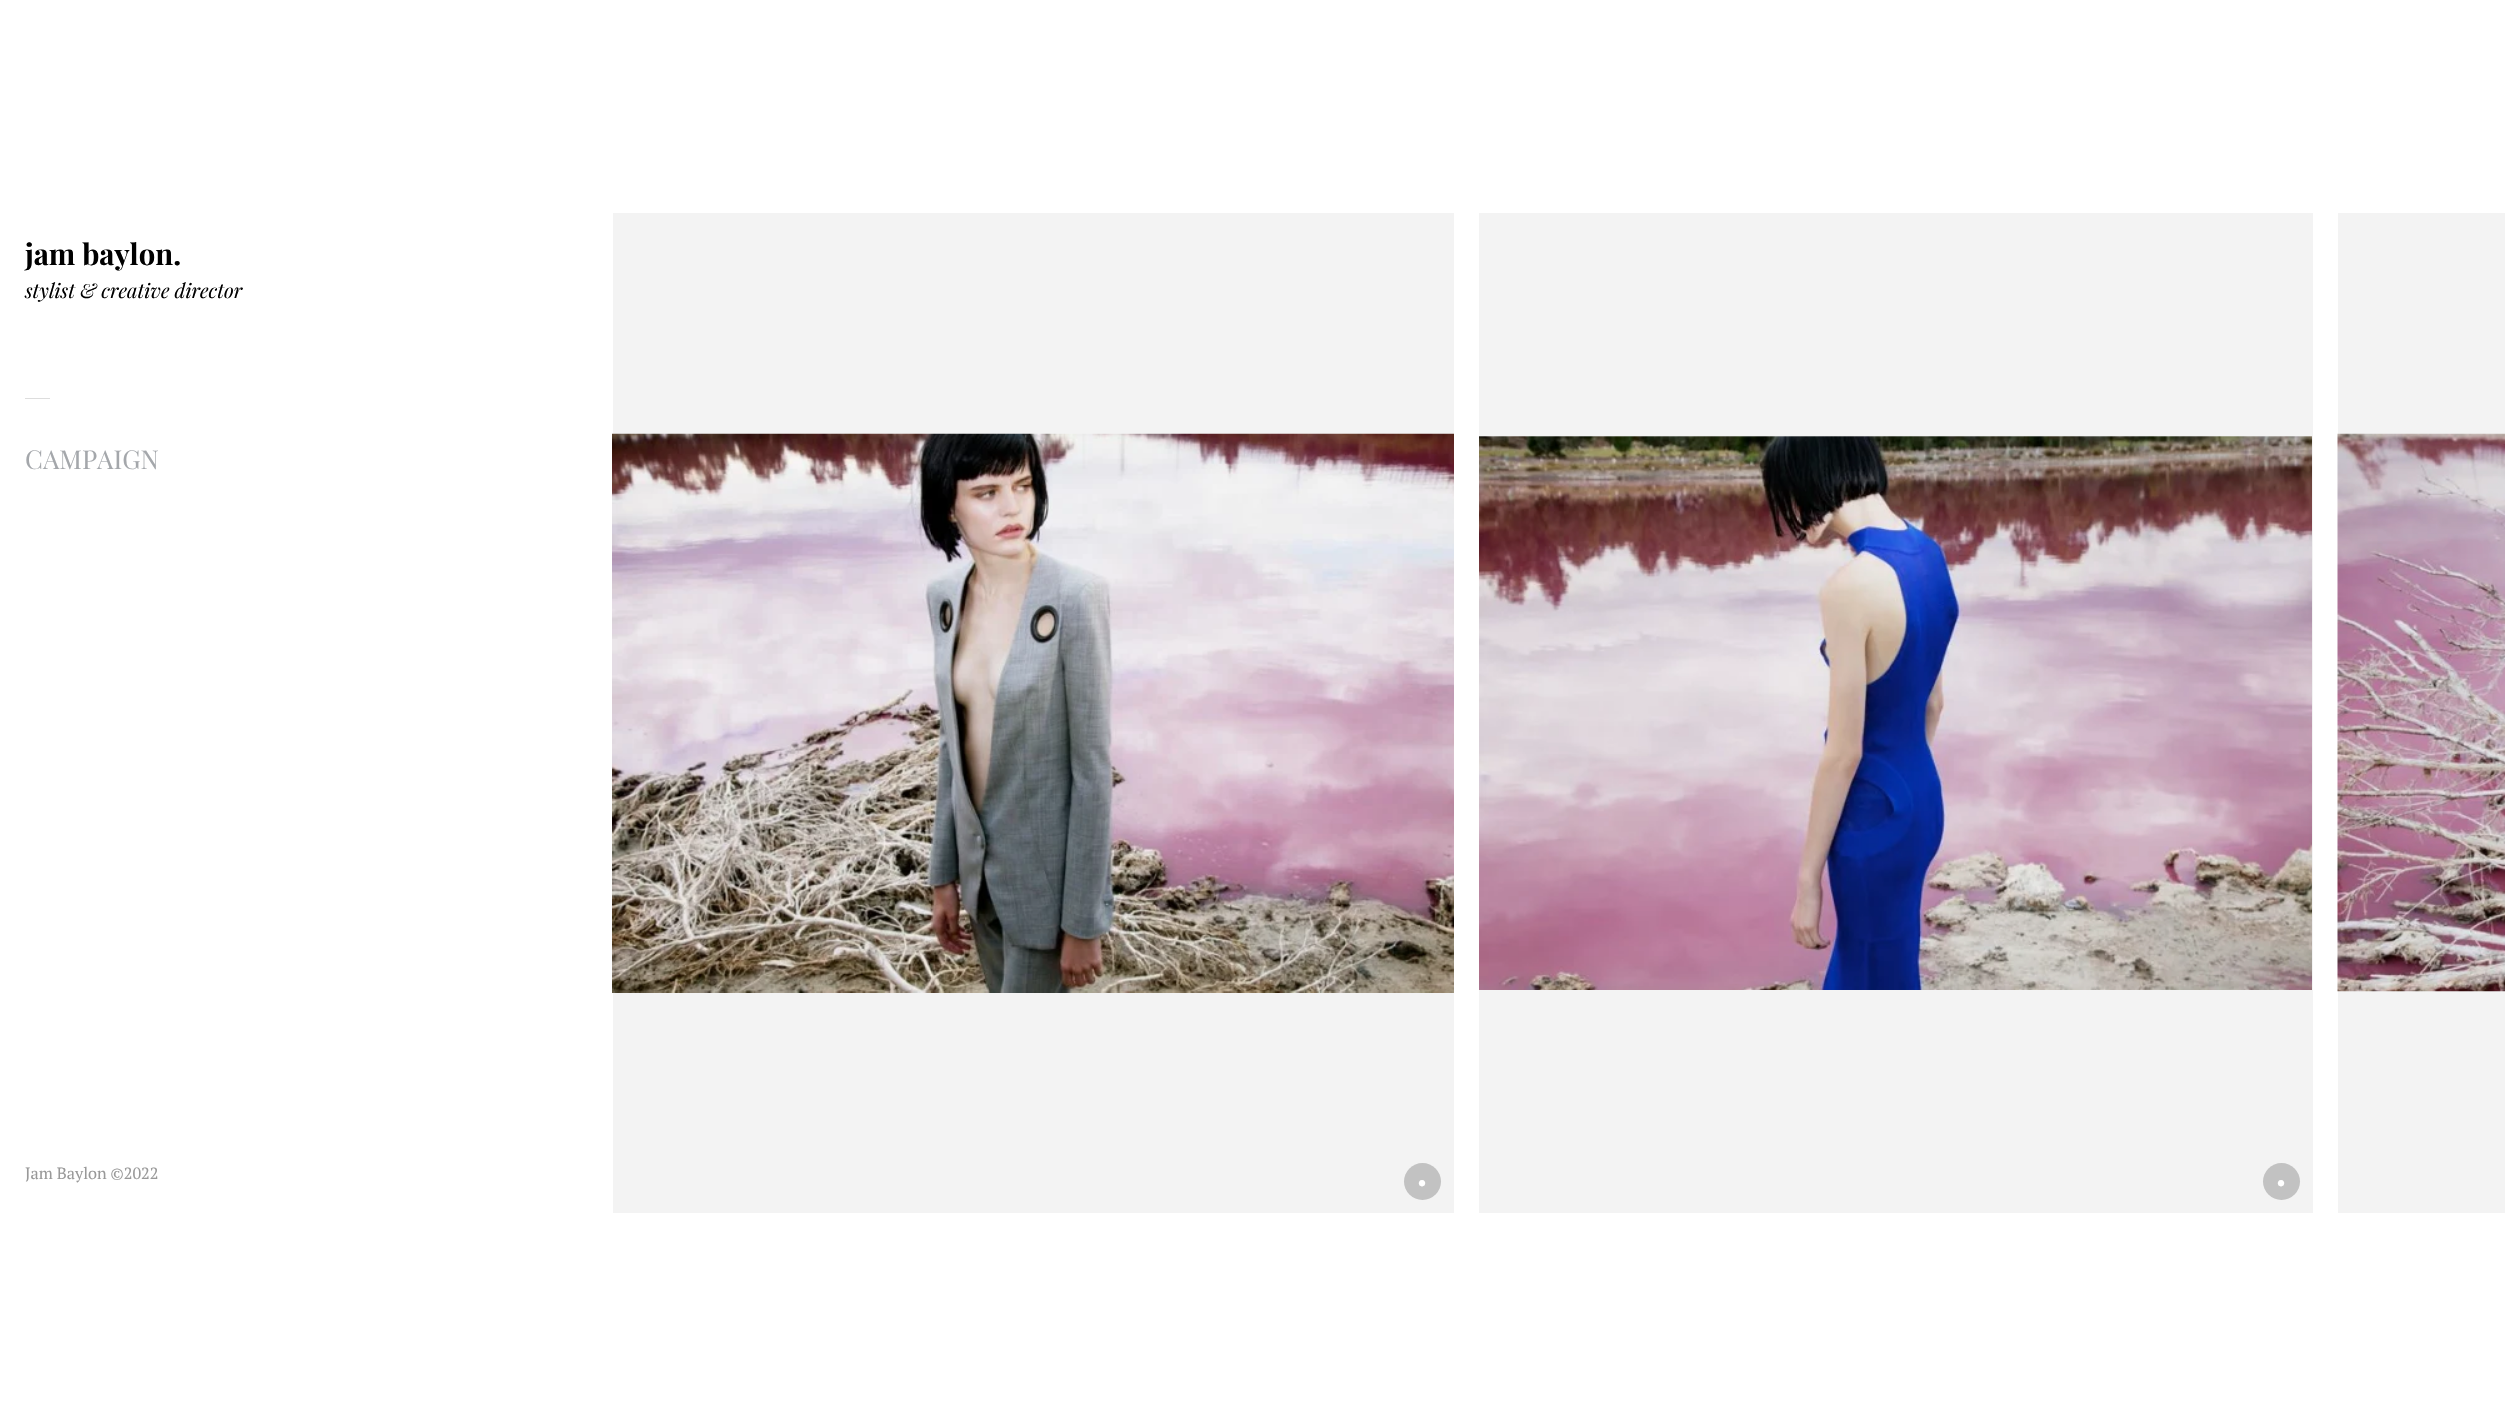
void draw(SkCanvas* canvas) {
  SkPaint paint;
  paint.setAntiAlias(true);
  auto face = [&](const char* family, int weight, float size, bool italic = false) {
    SkFontStyle style(weight, SkFontStyle::kNormal_Width,
      italic ? SkFontStyle::kItalic_Slant : SkFontStyle::kUpright_Slant);
    SkFont result(fontMgr->matchFamilyStyle(family, style), size);
    result.setSubpixel(true);
    return result;
  };
  auto paste = [&](const char* path, float x, float y, float w, float h) {
    auto image = SkImages::DeferredFromEncodedData(SkData::MakeFromFileName(path));
    canvas->drawImageRect(image, SkRect::MakeXYWH(x, y, w, h), SkSamplingOptions());
  };
  canvas->clear(0xffffffff);
  paint.setColor(0xffdddddd);
  canvas->drawRect(SkRect::MakeXYWH(25, 398, 25, 1), paint);
  paint.setColor(0xfff3f3f3);
  canvas->drawRect(SkRect::MakeXYWH(613, 213, 841, 1000), paint);
  paste("img/1.png", 612, 433, 842, 560);
  paint.setColor(0xffc2c2c2);
  canvas->drawCircle(1422.5f, 1181.5f, 18.5f, paint);
  paint.setColor(0xfff3f3f3);
  canvas->drawRect(SkRect::MakeXYWH(1479, 213, 834, 1000), paint);
  paste("img/2.png", 1479, 436, 833, 554);
  paint.setColor(0xffc2c2c2);
  canvas->drawCircle(2281.5f, 1181.5f, 18.5f, paint);
  paint.setColor(0xfff3f3f3);
  canvas->drawRect(SkRect::MakeXYWH(2338, 213, 167, 1000), paint);
  paste("img/3.png", 2337, 433, 168, 559);
  auto f0 = face("Playfair Display", 700, 29.25f);
  paint.setColor(0xff000000);
  canvas->drawString("jam baylon.", 25, 265, f0, paint);
  auto f1 = face("Playfair Display", 400, 20, true);
  canvas->drawString("stylist & creative director", 25, 298, f1, paint);
  auto f2 = face("Playfair Display", 400, 26);
  paint.setColor(0xffa4a7ab);
  canvas->drawString("CAMPAIGN", 25, 469, f2, paint);
  auto f3 = face("PT Serif", 400, 16.25f);
  paint.setColor(0xff999999);
  canvas->drawString("Jam Baylon ©2022", 25, 1179, f3, paint);
  auto f4 = face("PT Serif", 400, 22);
  paint.setColor(0xffffffff);
  canvas->drawString("•", 1417, 1190, f4, paint);
  canvas->drawString("•", 2276, 1190, f4, paint);
}
